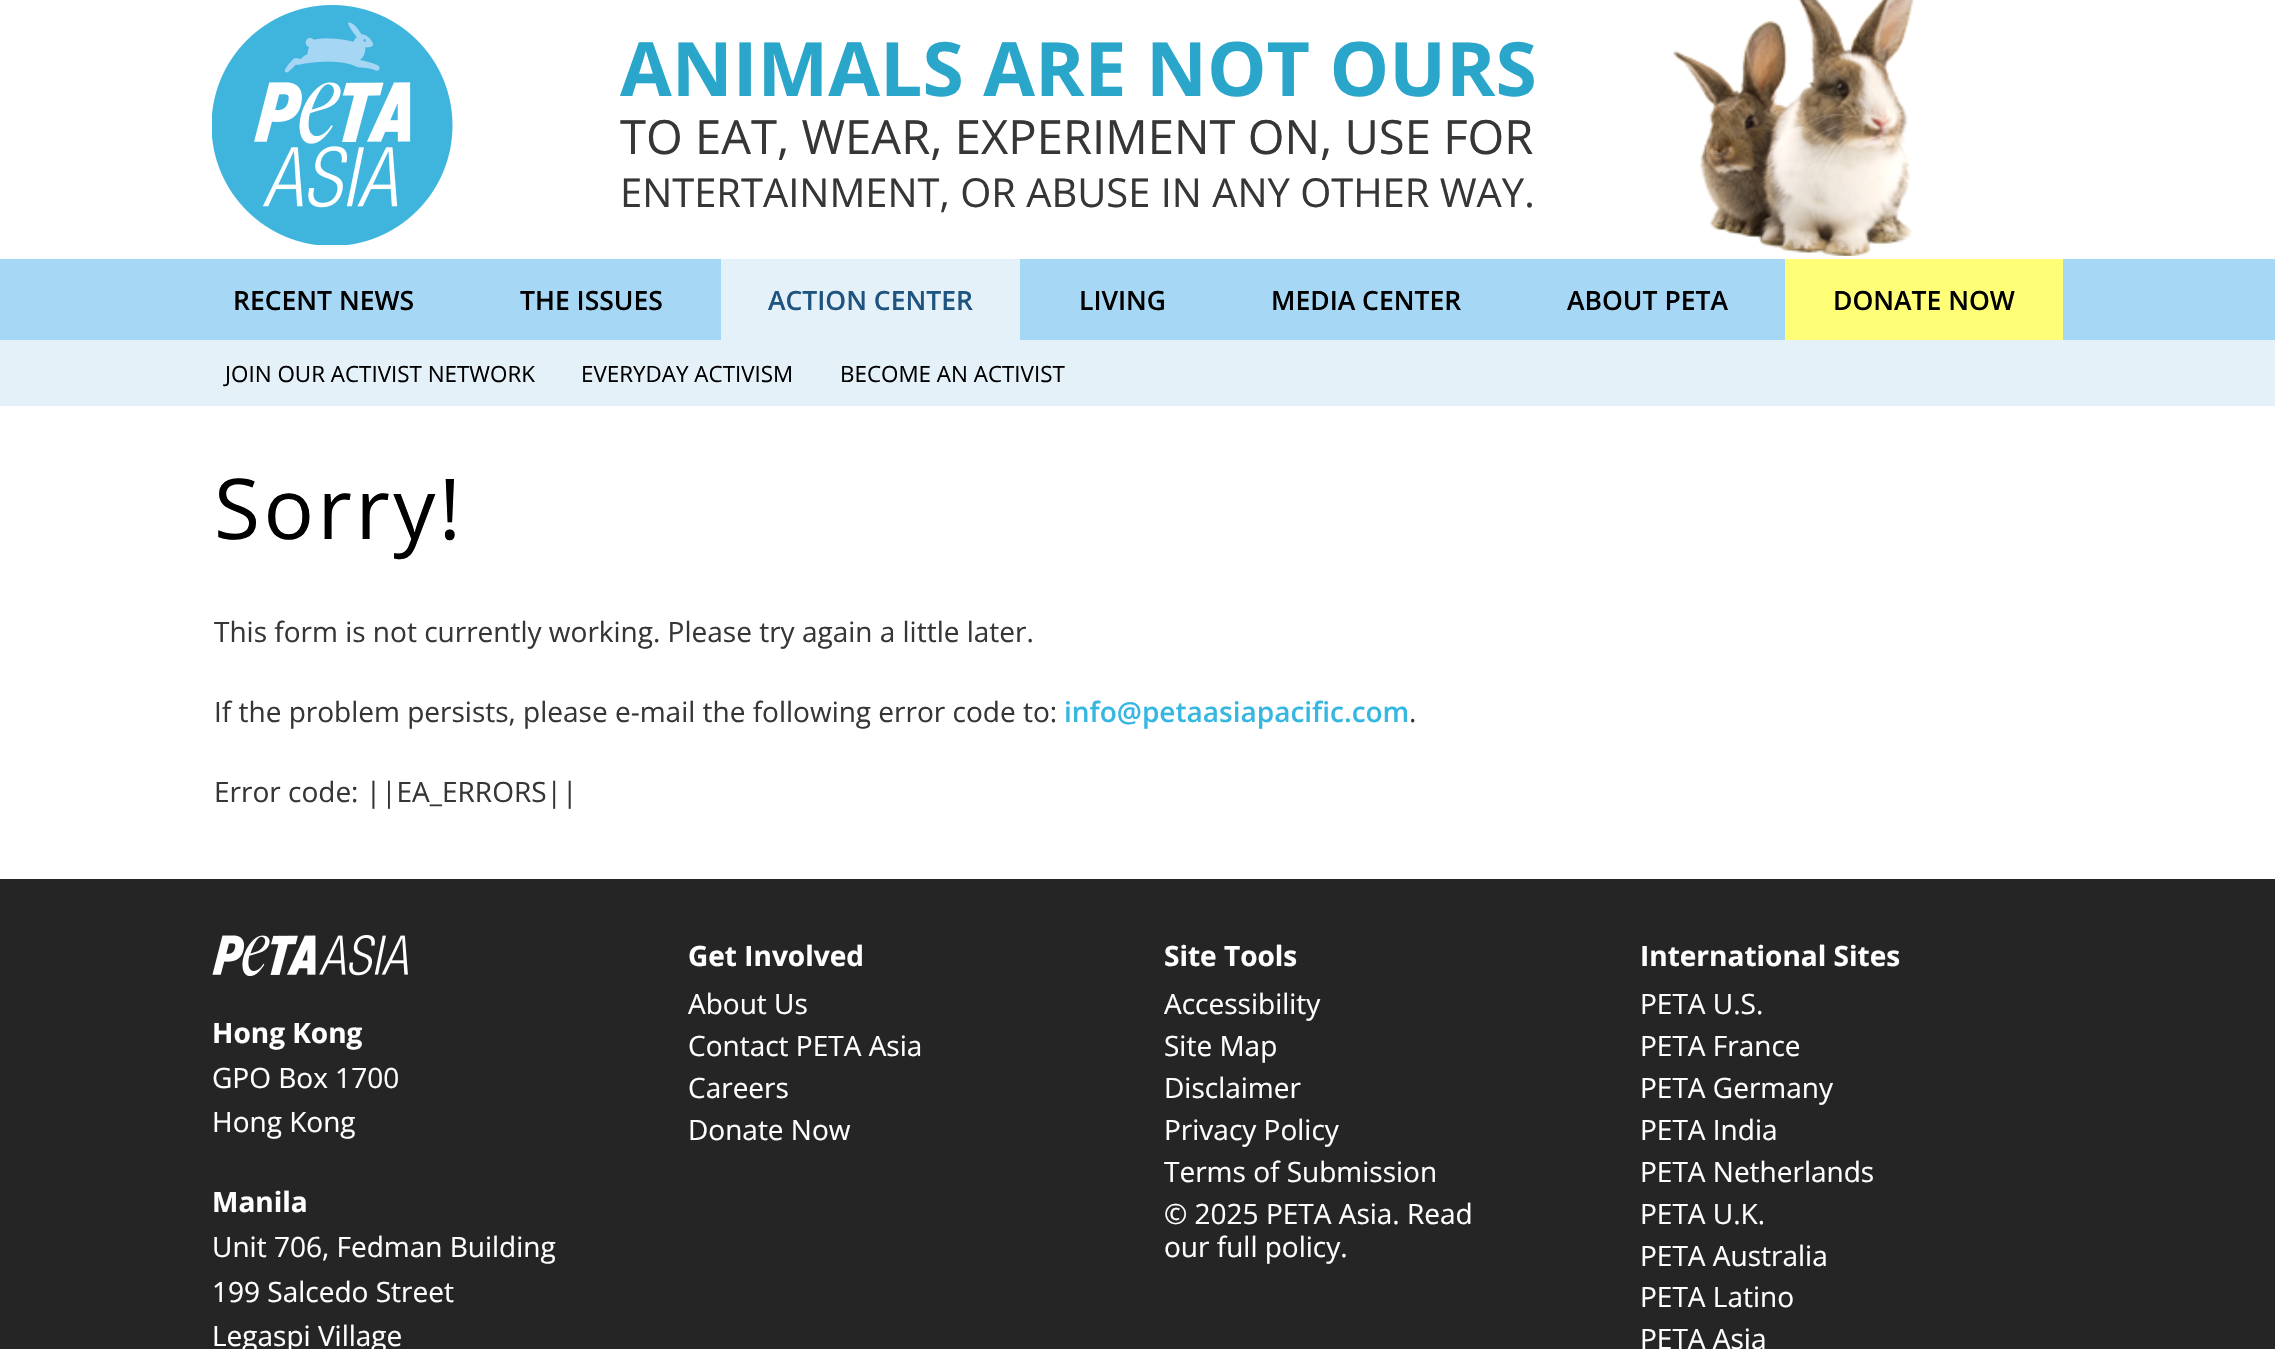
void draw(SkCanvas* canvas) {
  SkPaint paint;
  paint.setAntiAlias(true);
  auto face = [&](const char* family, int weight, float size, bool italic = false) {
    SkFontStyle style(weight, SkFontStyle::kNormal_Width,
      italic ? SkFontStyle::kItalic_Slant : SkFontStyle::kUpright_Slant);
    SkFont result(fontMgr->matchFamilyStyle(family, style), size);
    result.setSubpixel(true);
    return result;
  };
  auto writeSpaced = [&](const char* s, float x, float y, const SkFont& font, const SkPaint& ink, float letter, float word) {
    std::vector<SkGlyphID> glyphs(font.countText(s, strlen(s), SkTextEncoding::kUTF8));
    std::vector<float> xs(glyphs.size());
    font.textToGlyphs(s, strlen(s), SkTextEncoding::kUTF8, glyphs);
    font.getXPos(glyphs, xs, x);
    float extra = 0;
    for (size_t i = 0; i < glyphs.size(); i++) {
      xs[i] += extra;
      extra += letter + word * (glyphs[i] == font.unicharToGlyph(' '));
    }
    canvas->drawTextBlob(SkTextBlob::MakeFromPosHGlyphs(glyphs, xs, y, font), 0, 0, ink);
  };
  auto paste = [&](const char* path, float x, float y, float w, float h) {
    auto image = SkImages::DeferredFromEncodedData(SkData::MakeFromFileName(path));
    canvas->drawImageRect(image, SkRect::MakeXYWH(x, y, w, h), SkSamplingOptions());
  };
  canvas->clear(0xffffffff);
  paste("img/1.png", 212, 5, 241, 240);
  paste("img/2.png", 1673, 0, 241, 256);
  {
    const struct { float x, y, w, h; SkColor color; } items[] = {
      {0, 259, 2275, 81, 0xffa6d7f5},
      {0, 340, 2275, 66, 0xffe5f1f8},
      {721, 259, 299, 81, 0xffe5f1f8},
      {1785, 259, 278, 81, 0xffffff77},
      {0, 879, 2275, 470, 0xff252525},
    };
    for (auto [x, y, w, h, color] : items) {
      paint.setColor(color);
      canvas->drawRect(SkRect::MakeXYWH(x, y, w, h), paint);
    }
  }
  paste("img/3.png", 212, 935, 196, 42);
  auto f0 = face("Open Sans", 700, 75);
  paint.setColor(0xff2ba6cb);
  canvas->drawString("ANIMALS ARE NOT OURS", 620, 96, f0, paint);
  auto f1 = face("Open Sans", 400, 47.2f);
  paint.setColor(0xff363636);
  canvas->drawString("TO EAT, WEAR, EXPERIMENT ON, USE FOR", 620, 154, f1, paint);
  auto f2 = face("Open Sans", 400, 39.9f);
  canvas->drawString("ENTERTAINMENT, OR ABUSE IN ANY OTHER WAY.", 620, 207, f2, paint);
  auto f3 = face("Open Sans", 600, 26.5f);
  paint.setColor(0xff1e547f);
  canvas->drawString("ACTION CENTER", 768, 310, f3, paint);
  auto f4 = face("Open Sans", 400, 22.4f);
  paint.setColor(0xff000000);
  {
    const struct { const char* s; float x, y; } items[] = {
      {"JOIN OUR ACTIVIST NETWORK", 225, 382},
      {"EVERYDAY ACTIVISM", 581, 382},
      {"BECOME AN ACTIVIST", 840, 382},
    };
    for (auto [s, x, y] : items) {
      canvas->drawString(s, x, y, f4, paint);
    }
  }
  {
    const struct { const char* s; float x, y; } items[] = {
      {"RECENT NEWS", 233, 310},
      {"THE ISSUES", 520, 310},
      {"LIVING", 1079, 310},
      {"MEDIA CENTER", 1271, 310},
      {"ABOUT PETA", 1567, 310},
      {"DONATE NOW", 1833, 310},
    };
    for (auto [s, x, y] : items) {
      canvas->drawString(s, x, y, f3, paint);
    }
  }
  auto f5 = face("Open Sans", 400, 84);
  writeSpaced("Sorry!", 214, 539, f5, paint, 3.5f, 0);
  auto f6 = face("Open Sans", 400, 28);
  paint.setColor(0xff363636);
  canvas->drawString("This form is not currently working. Please try again a little later.", 214, 642, f6, paint);
  canvas->drawString("If the problem persists, please e-mail the following error code to:", 214, 722, f6, paint);
  auto f7 = face("Open Sans", 600, 28);
  paint.setColor(0xff36b7e1);
  canvas->drawString("info@petaasiapacific.com", 1064, 722, f7, paint);
  paint.setColor(0xff363636);
  canvas->drawString(".", 1409, 722, f6, paint);
  canvas->drawString("Error code: ||EA_ERRORS||", 214, 802, f6, paint);
  auto f8 = face("Open Sans", 700, 28);
  paint.setColor(0xffffffff);
  canvas->drawString("Hong Kong", 212, 1043, f8, paint);
  canvas->drawString("GPO Box 1700", 212, 1088, f6, paint);
  canvas->drawString("Hong Kong", 212, 1132, f6, paint);
  canvas->drawString("Manila", 212, 1212, f8, paint);
  {
    const struct { const char* s; float x, y; } items[] = {
      {"Unit 706, Fedman Building", 212, 1257},
      {"199 Salcedo Street", 212, 1302},
      {"Legaspi Village", 212, 1346},
    };
    for (auto [s, x, y] : items) {
      canvas->drawString(s, x, y, f6, paint);
    }
  }
  canvas->drawString("Get Involved", 688, 966, f8, paint);
  {
    const struct { const char* s; float x, y; } items[] = {
      {"About Us", 688, 1014},
      {"Contact PETA Asia", 688, 1056},
      {"Careers", 688, 1098},
      {"Donate Now", 688, 1140},
    };
    for (auto [s, x, y] : items) {
      canvas->drawString(s, x, y, f6, paint);
    }
  }
  canvas->drawString("Site Tools", 1164, 966, f8, paint);
  {
    const struct { const char* s; float x, y; } items[] = {
      {"Accessibility", 1164, 1014},
      {"Site Map", 1164, 1056},
      {"Disclaimer", 1164, 1098},
      {"Privacy Policy", 1164, 1140},
      {"Terms of Submission", 1164, 1182},
      {"© 2025 PETA Asia. Read", 1164, 1224},
      {"our full policy.", 1164, 1257},
    };
    for (auto [s, x, y] : items) {
      canvas->drawString(s, x, y, f6, paint);
    }
  }
  canvas->drawString("International Sites", 1640, 966, f8, paint);
  {
    const struct { const char* s; float x, y; } items[] = {
      {"PETA U.S.", 1640, 1014},
      {"PETA France", 1640, 1056},
      {"PETA Germany", 1640, 1098},
      {"PETA India", 1640, 1140},
      {"PETA Netherlands", 1640, 1182},
      {"PETA U.K.", 1640, 1224},
      {"PETA Australia", 1640, 1266},
      {"PETA Latino", 1640, 1307},
      {"PETA Asia", 1640, 1349},
    };
    for (auto [s, x, y] : items) {
      canvas->drawString(s, x, y, f6, paint);
    }
  }
}
